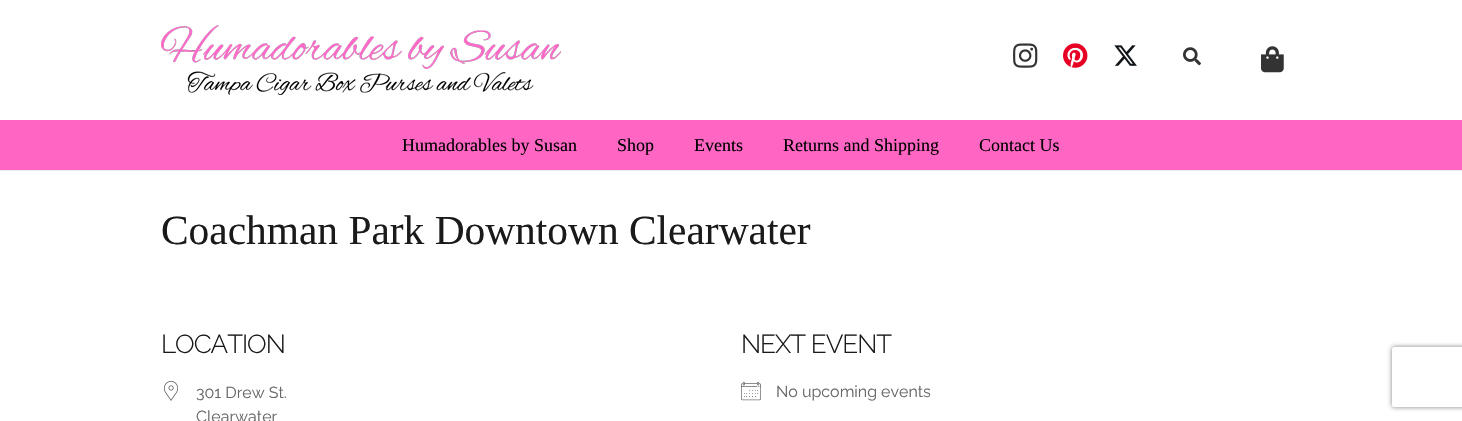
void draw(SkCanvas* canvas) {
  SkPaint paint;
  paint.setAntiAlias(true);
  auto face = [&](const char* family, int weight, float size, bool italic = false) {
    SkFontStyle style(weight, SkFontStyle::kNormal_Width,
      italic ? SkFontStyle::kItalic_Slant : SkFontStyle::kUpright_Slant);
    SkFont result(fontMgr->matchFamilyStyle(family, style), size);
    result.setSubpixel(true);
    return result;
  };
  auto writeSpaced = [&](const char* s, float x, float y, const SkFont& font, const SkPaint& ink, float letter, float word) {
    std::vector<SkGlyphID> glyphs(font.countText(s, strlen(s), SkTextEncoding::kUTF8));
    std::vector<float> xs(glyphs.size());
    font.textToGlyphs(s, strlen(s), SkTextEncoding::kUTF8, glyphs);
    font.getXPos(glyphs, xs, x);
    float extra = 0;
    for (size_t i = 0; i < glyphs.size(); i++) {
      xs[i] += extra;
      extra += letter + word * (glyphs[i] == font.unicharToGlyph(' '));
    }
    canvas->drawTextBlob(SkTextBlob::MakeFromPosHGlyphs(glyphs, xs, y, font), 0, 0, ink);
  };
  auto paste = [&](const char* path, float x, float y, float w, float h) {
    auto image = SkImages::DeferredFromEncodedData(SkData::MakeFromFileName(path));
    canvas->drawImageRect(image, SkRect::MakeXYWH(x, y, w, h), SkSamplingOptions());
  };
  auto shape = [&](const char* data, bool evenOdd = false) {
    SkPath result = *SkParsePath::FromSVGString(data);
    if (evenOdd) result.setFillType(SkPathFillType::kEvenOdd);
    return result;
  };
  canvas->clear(0xffffffff);
  paste("img/1.png", 161, 25, 400, 70);
  paste("img/2.png", 1013, 43, 25, 25);
  paste("img/3.png", 1063, 43, 25, 25);
  paste("img/4.png", 1114, 45, 23, 21);
  paste("img/5.png", 1183, 47, 18, 19);
  paste("img/6.png", 1261, 46, 23, 27);
  paint.setColor(0xffebebeb);
  canvas->drawRect(SkRect::MakeXYWH(0, 170, 1462, 1), paint);
  paint.setColor(0xffff65c3);
  canvas->drawRect(SkRect::MakeXYWH(0, 120, 1462, 50), paint);
  paste("img/7.png", 164, 381, 14, 20);
  paste("img/8.png", 741, 381, 20, 20);
  canvas->save();
  canvas->clipPath(shape("M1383 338H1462V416H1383ZM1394 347H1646C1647 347 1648 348 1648 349V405C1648 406 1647 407 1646 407H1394C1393 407 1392 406 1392 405V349C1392 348 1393 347 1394 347Z", true), true);
  paint.setColor(0xff808080);
  paint.setMaskFilter(SkMaskFilter::MakeBlur(kNormal_SkBlurStyle, 2.5f));
  canvas->drawRoundRect(SkRect::MakeXYWH(1392, 347, 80, 60), 2, 2, paint);
  paint.setMaskFilter(nullptr);
  canvas->restore();
  auto f0 = face("Liberation Serif", 400, 18);
  paint.setColor(0xff000000);
  {
    const struct { const char* s; float x, y; } items[] = {
      {"Humadorables by Susan", 402, 151},
      {"Shop", 617, 151},
      {"Events", 694, 151},
      {"Returns and Shipping", 783, 151},
      {"Contact Us", 979, 151},
    };
    for (auto [s, x, y] : items) {
      canvas->drawString(s, x, y, f0, paint);
    }
  }
  auto f1 = face("Liberation Serif", 400, 41.4f);
  paint.setColor(0xff1a1a1a);
  canvas->drawString("Coachman Park Downtown Clearwater", 161, 244, f1, paint);
  auto f2 = face("Raleway", 300, 26);
  writeSpaced("LOCATION", 161, 353, f2, paint, -1, 0);
  auto f3 = face("Raleway", 400, 16);
  paint.setColor(0xff666666);
  canvas->drawString("301 Drew St.", 196, 398, f3, paint);
  canvas->drawString("Clearwater", 196, 422, f3, paint);
  paint.setColor(0xff1a1a1a);
  writeSpaced("NEXT EVENT", 741, 353, f2, paint, -1, 0);
  paint.setColor(0xff666666);
  canvas->drawString("No upcoming events", 776, 397, f3, paint);
}
